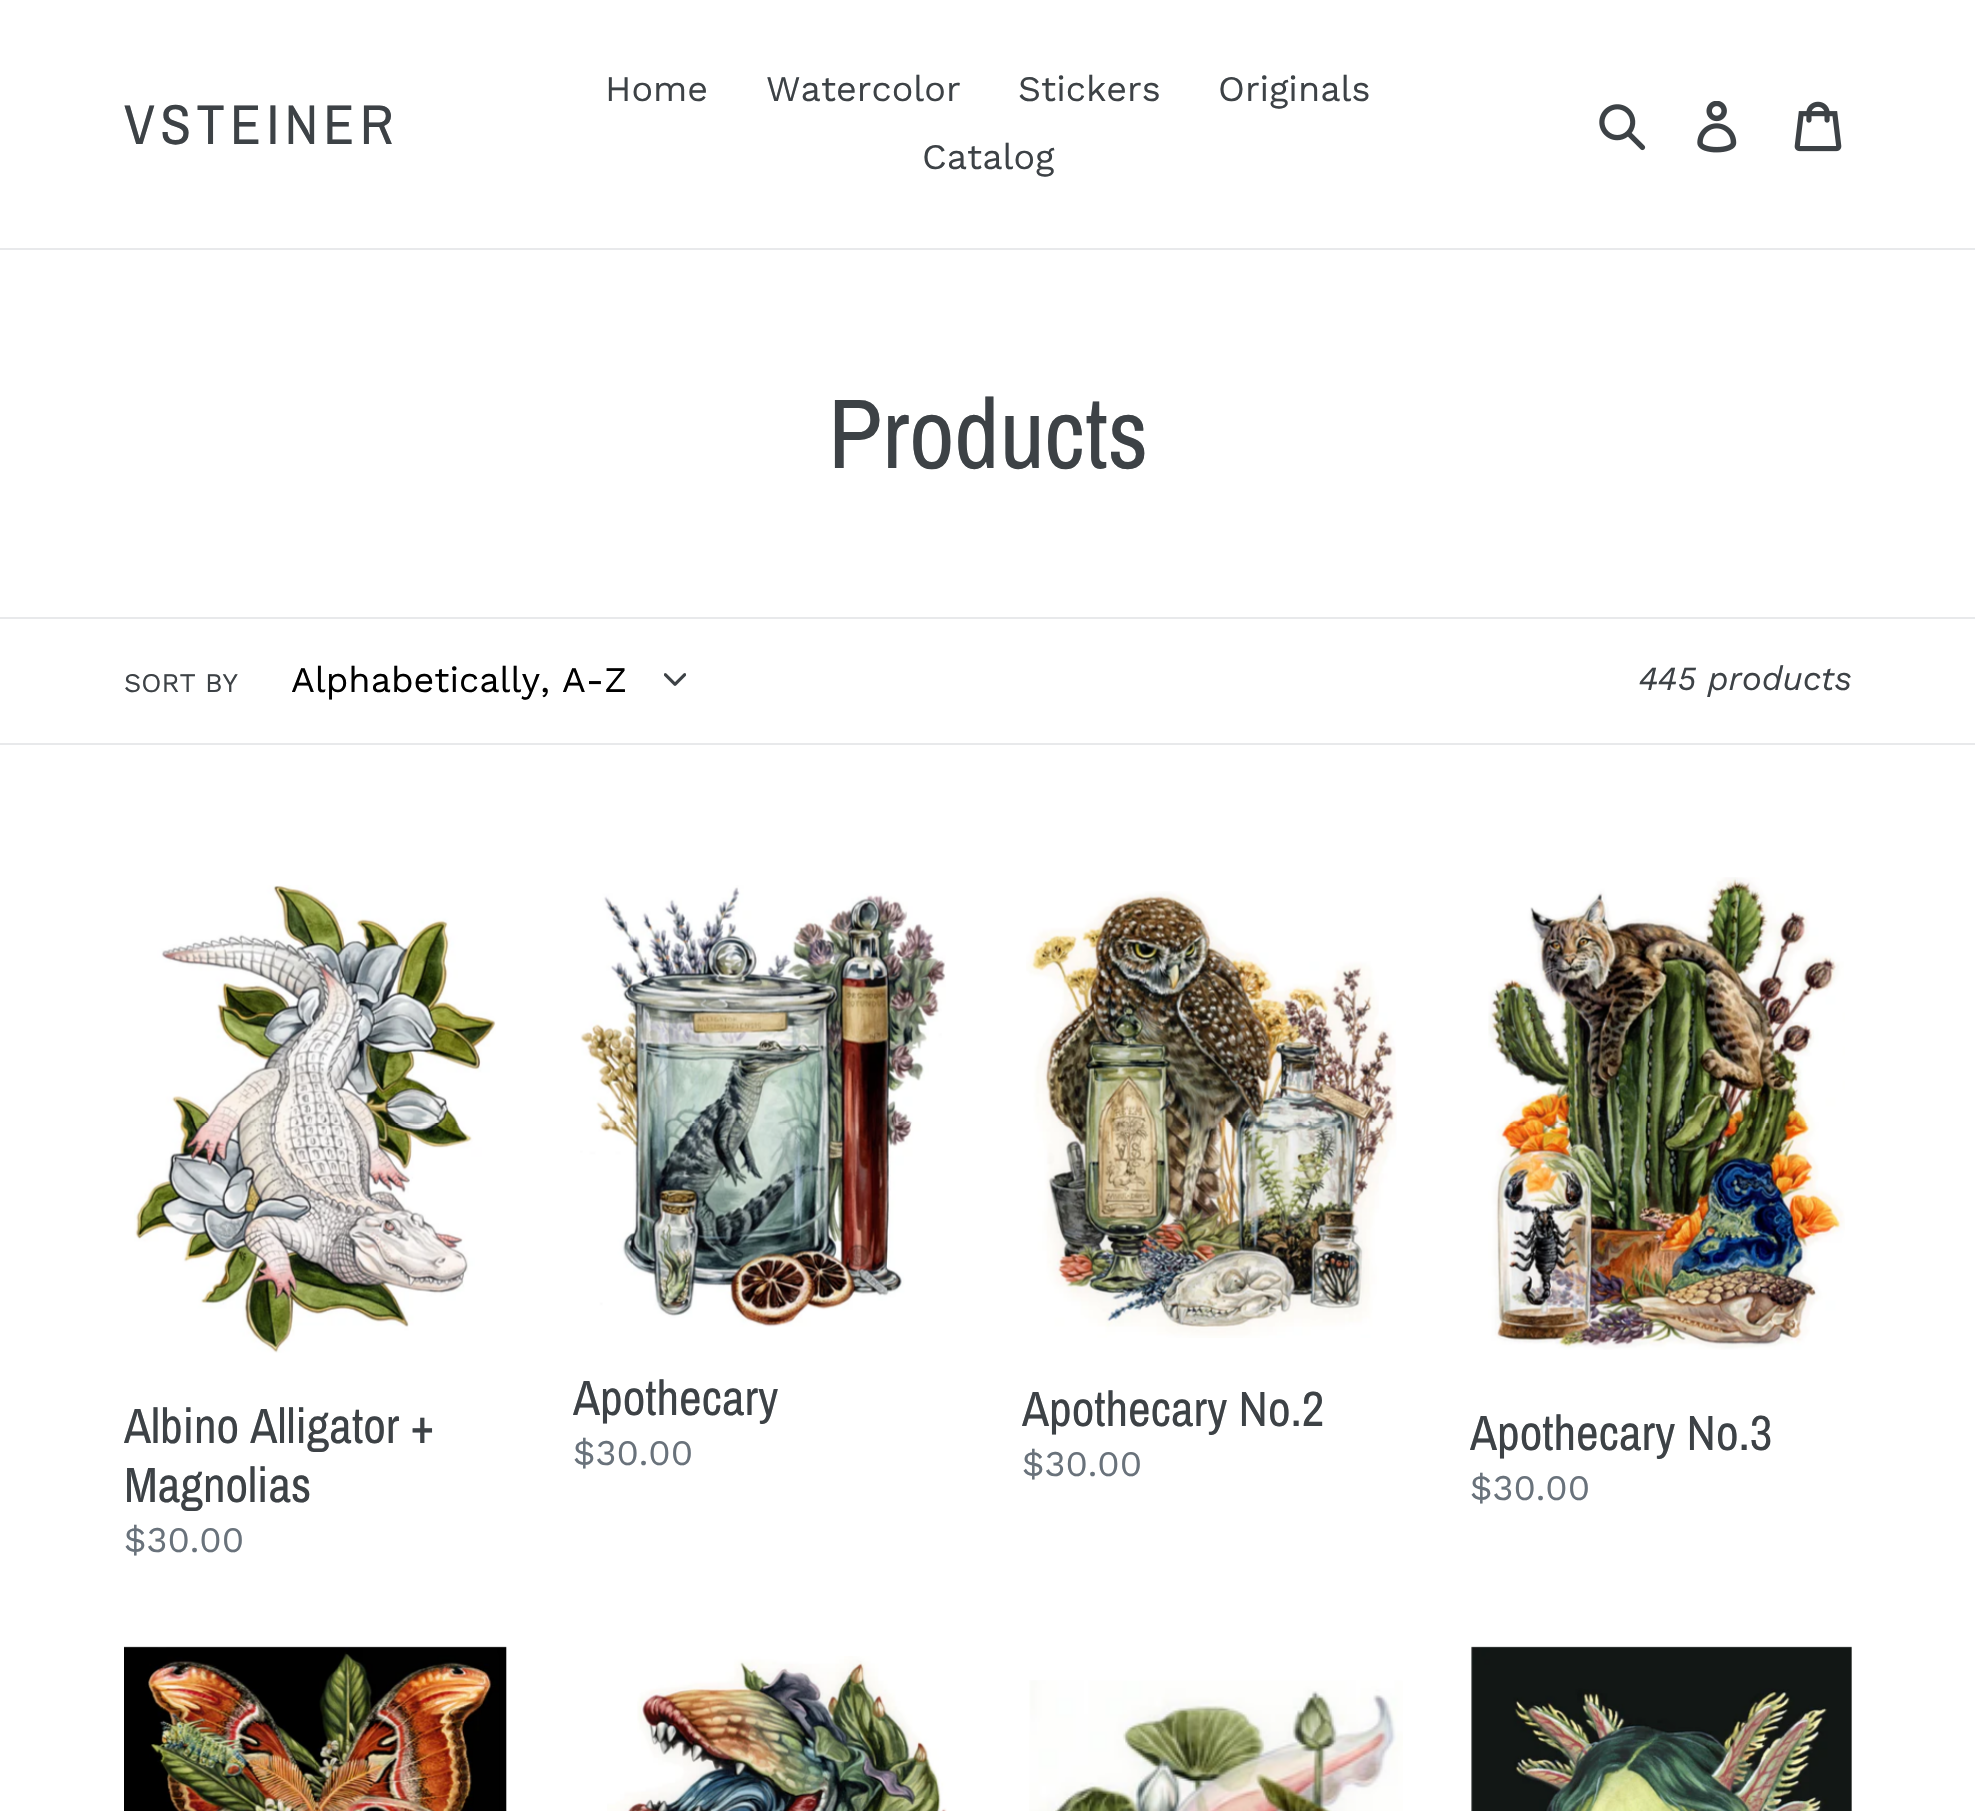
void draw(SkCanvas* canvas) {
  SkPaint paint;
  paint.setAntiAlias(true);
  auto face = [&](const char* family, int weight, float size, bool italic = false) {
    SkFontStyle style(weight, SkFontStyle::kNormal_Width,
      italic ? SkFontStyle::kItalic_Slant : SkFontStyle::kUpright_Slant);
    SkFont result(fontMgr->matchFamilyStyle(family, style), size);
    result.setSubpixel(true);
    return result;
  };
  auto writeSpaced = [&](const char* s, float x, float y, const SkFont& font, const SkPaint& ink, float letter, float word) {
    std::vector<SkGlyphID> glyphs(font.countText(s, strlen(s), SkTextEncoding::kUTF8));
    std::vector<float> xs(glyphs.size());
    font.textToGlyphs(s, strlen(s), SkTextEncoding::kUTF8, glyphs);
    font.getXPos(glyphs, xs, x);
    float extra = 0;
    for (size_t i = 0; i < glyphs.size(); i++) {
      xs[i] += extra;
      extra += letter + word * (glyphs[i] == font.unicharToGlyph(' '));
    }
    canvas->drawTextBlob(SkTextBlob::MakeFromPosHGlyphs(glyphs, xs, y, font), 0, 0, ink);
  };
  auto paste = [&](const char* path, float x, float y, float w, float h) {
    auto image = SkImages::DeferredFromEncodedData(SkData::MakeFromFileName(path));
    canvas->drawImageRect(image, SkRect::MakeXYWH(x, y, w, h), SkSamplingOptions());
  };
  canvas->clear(0xffffffff);
  paint.setColor(0xffe8e9eb);
  canvas->drawRect(SkRect::MakeXYWH(0, 248, 1975, 2), paint);
  paste("img/1.png", 1599, 104, 47, 47);
  paste("img/2.png", 1697, 101, 40, 52);
  paste("img/3.png", 1794, 101, 48, 51);
  canvas->drawRect(SkRect::MakeXYWH(0, 617, 1975, 2), paint);
  canvas->drawRect(SkRect::MakeXYWH(0, 743, 1975, 2), paint);
  paste("img/4.png", 664, 673, 22, 13);
  paste("img/5.png", 134, 885, 362, 468);
  paste("img/6.png", 580, 885, 366, 442);
  paste("img/7.png", 1026, 891, 371, 447);
  paste("img/8.png", 1488, 877, 357, 473);
  paste("img/9.png", 124, 1646, 383, 165);
  paste("img/10.png", 607, 1656, 340, 155);
  paste("img/11.png", 1029, 1680, 374, 131);
  paste("img/12.png", 1471, 1646, 381, 165);
  auto f0 = face("Archivo Narrow", 400, 56.25f);
  paint.setColor(0xff3d4246);
  writeSpaced("VSTEINER", 124, 144, f0, paint, 5.5f, 0);
  auto f1 = face("Work Sans", 400, 36);
  {
    const struct { const char* s; float x, y; } items[] = {
      {"Home", 605, 101},
      {"Watercolor", 766, 101},
      {"Stickers", 1018, 101},
      {"Originals", 1218, 101},
      {"Catalog", 922, 169},
    };
    for (auto [s, x, y] : items) {
      canvas->drawString(s, x, y, f1, paint);
    }
  }
  auto f2 = face("Archivo Narrow", 400, 99);
  canvas->drawString("Products", 828, 468, f2, paint);
  auto f3 = face("Work Sans", 400, 27);
  canvas->drawString("SORT BY", 124, 692, f3, paint);
  paint.setColor(0xff000000);
  canvas->drawString("Alphabetically, A-Z", 291, 692, f1, paint);
  auto f4 = face("Work Sans", 400, 33.75f, true);
  paint.setColor(0xff3d4246);
  canvas->drawString("445 products", 1639, 690, f4, paint);
  auto f5 = face("Archivo Narrow", 400, 49.5f);
  canvas->drawString("Albino Alligator +", 124, 1443, f5, paint);
  canvas->drawString("Magnolias", 124, 1502, f5, paint);
  paint.setColor(0xff69727b);
  canvas->drawString("$30.00", 124, 1552, f1, paint);
  paint.setColor(0xff3d4246);
  canvas->drawString("Apothecary", 573, 1415, f5, paint);
  paint.setColor(0xff69727b);
  canvas->drawString("$30.00", 573, 1465, f1, paint);
  paint.setColor(0xff3d4246);
  canvas->drawString("Apothecary No.2", 1022, 1426, f5, paint);
  paint.setColor(0xff69727b);
  canvas->drawString("$30.00", 1022, 1476, f1, paint);
  paint.setColor(0xff3d4246);
  canvas->drawString("Apothecary No.3", 1470, 1450, f5, paint);
  paint.setColor(0xff69727b);
  canvas->drawString("$30.00", 1470, 1500, f1, paint);
}
